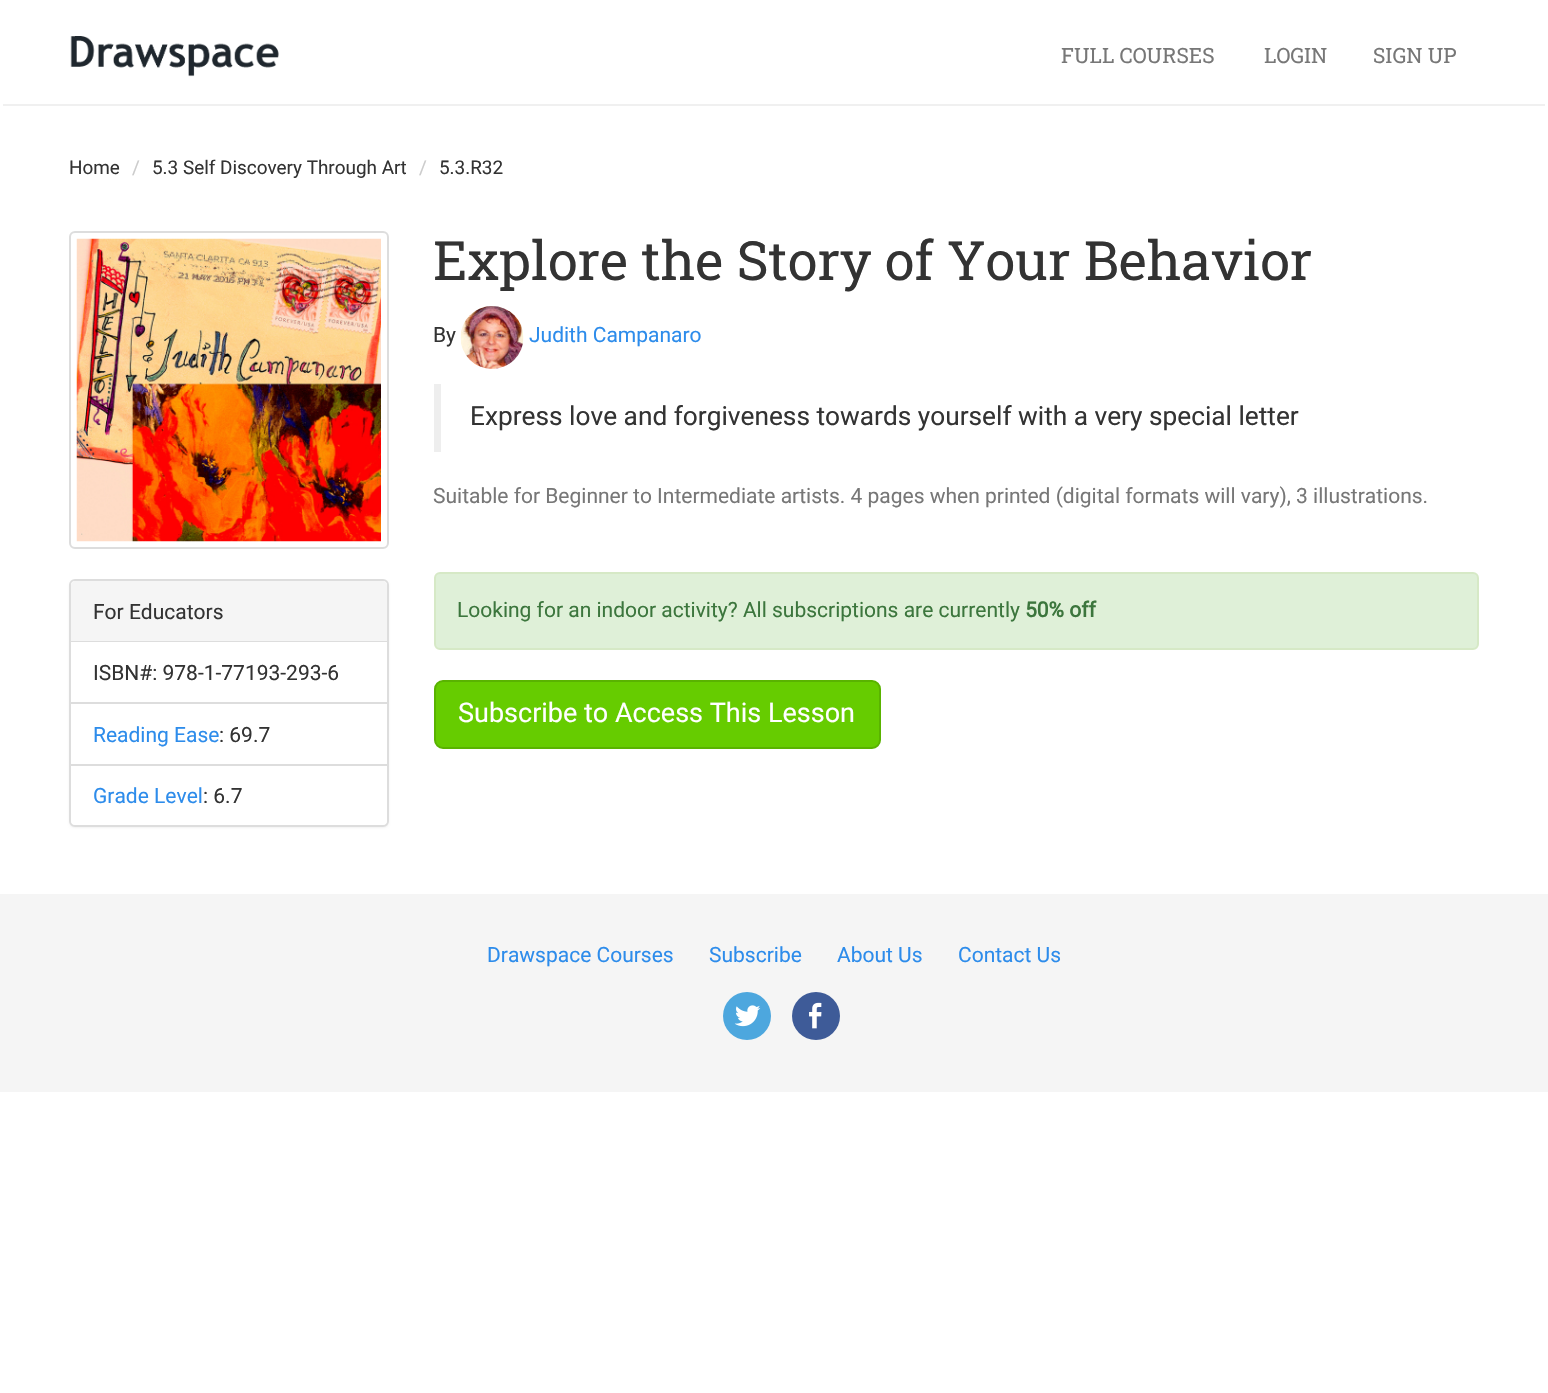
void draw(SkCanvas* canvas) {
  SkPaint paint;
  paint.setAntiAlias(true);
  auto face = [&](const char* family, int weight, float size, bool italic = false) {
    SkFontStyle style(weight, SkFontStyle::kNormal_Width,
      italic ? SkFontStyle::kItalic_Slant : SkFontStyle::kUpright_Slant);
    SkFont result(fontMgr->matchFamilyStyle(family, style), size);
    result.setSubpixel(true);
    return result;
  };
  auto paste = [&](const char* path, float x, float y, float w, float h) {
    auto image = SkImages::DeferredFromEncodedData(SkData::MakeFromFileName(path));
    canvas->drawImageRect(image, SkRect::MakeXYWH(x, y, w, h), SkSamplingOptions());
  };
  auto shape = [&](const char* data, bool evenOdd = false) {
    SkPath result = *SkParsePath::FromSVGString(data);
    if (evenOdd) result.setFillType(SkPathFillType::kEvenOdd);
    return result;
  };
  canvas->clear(0xffffffff);
  paint.setColor(0xfff0f0f0);
  canvas->drawRect(SkRect::MakeXYWH(3, 104, 1542, 2), paint);
  paste("img/1.png", 70, 36, 209, 41);
  paint.setStroke(true);
  paint.setStrokeWidth(2);
  paint.setColor(0xffdddddd);
  canvas->drawRoundRect(SkRect::MakeXYWH(70, 232, 318, 316), 5, 5, paint);
  paste("img/2.png", 76, 238, 305, 304);
  paint.setStroke(false);
  paint.setColor(0x0d000000);
  paint.setMaskFilter(SkMaskFilter::MakeBlur(kNormal_SkBlurStyle, 1));
  canvas->drawRoundRect(SkRect::MakeXYWH(69, 581, 320, 247), 6, 6, paint);
  paint.setMaskFilter(nullptr);
  paint.setColor(0xffffffff);
  canvas->drawRoundRect(SkRect::MakeXYWH(70, 580, 318, 246), 5, 5, paint);
  paint.setStroke(true);
  paint.setColor(0xffdddddd);
  canvas->drawRoundRect(SkRect::MakeXYWH(70, 580, 318, 246), 5, 5, paint);
  paint.setStroke(false);
  paint.setColor(0xfff5f5f5);
  canvas->drawPath(shape("M76 581H382C385 581 387 583 387 586V642H71V586C71 583 73 581 76 581Z"), paint);
  paint.setColor(0xffdddddd);
  canvas->drawRect(SkRect::MakeXYWH(71, 641, 316, 1), paint);
  canvas->drawRect(SkRect::MakeXYWH(71, 702, 316, 2), paint);
  paint.setColor(0xffffffff);
  canvas->drawPath(shape("M71 764H387V820C387 823 385 825 382 825H76C73 825 71 823 71 820Z"), paint);
  paint.setColor(0xffdddddd);
  canvas->drawRect(SkRect::MakeXYWH(71, 764, 316, 2), paint);
  paste("img/3.png", 460, 306, 64, 63);
  paint.setColor(0xffeeeeee);
  canvas->drawRect(SkRect::MakeXYWH(434, 384, 7, 68), paint);
  paint.setColor(0xffdff0d8);
  canvas->drawRoundRect(SkRect::MakeXYWH(435, 573, 1043, 76), 5, 5, paint);
  paint.setStroke(true);
  paint.setColor(0xffd6e9c6);
  canvas->drawRoundRect(SkRect::MakeXYWH(435, 573, 1043, 76), 5, 5, paint);
  paint.setStroke(false);
  paint.setColor(0xff66cc00);
  canvas->drawRoundRect(SkRect::MakeXYWH(435, 681, 445, 67), 8, 8, paint);
  paint.setStroke(true);
  paint.setColor(0xff59b300);
  canvas->drawRoundRect(SkRect::MakeXYWH(435, 681, 445, 67), 8, 8, paint);
  paint.setStroke(false);
  paint.setColor(0xfff5f5f5);
  canvas->drawRect(SkRect::MakeXYWH(0, 894, 1548, 198), paint);
  paint.setColor(0xff4da7de);
  canvas->drawCircle(747, 1016, 24, paint);
  paste("img/4.png", 734, 1005, 27, 22);
  paint.setColor(0xff3e5b98);
  canvas->drawCircle(816, 1016, 24, paint);
  paste("img/5.png", 809, 1002, 13, 27);
  auto f0 = face("Roboto Slab", 400, 21);
  paint.setColor(0xff777777);
  {
    const struct { const char* s; float x, y; } items[] = {
      {"FULL COURSES", 1061, 63},
      {"LOGIN", 1264, 63},
      {"SIGN UP", 1373, 63},
    };
    for (auto [s, x, y] : items) {
      canvas->drawString(s, x, y, f0, paint);
    }
  }
  auto f1 = face("Roboto", 400, 18.9f);
  paint.setColor(0xff333333);
  canvas->drawString("Home", 69, 174, f1, paint);
  paint.setColor(0xffcccccc);
  canvas->drawString("/", 132, 174, f1, paint);
  paint.setColor(0xff333333);
  canvas->drawString("5.3 Self Discovery Through Art", 152, 174, f1, paint);
  paint.setColor(0xffcccccc);
  canvas->drawString("/", 419, 174, f1, paint);
  paint.setColor(0xff333333);
  canvas->drawString("5.3.R32", 439, 174, f1, paint);
  auto f2 = face("Roboto", 400, 21);
  canvas->drawString("For Educators", 93, 619, f2, paint);
  canvas->drawString("ISBN#: 978-1-77193-293-6", 93, 680, f2, paint);
  paint.setColor(0xff2d8ceb);
  canvas->drawString("Reading Ease", 93, 742, f2, paint);
  paint.setColor(0xff333333);
  canvas->drawString(": 69.7", 219, 742, f2, paint);
  paint.setColor(0xff2d8ceb);
  canvas->drawString("Grade Level", 93, 803, f2, paint);
  paint.setColor(0xff333333);
  canvas->drawString(": 6.7", 203, 803, f2, paint);
  auto f3 = face("Roboto Slab", 400, 54);
  canvas->drawString("Explore the Story of Your Behavior", 433, 280, f3, paint);
  canvas->drawString("By", 433, 342, f2, paint);
  paint.setColor(0xff2d8ceb);
  canvas->drawString("Judith Campanaro", 529, 342, f2, paint);
  auto f4 = face("Roboto", 400, 26.25f);
  paint.setColor(0xff333333);
  canvas->drawString("Express love and forgiveness towards yourself with a very special letter", 470, 425, f4, paint);
  paint.setColor(0xff777777);
  canvas->drawString("Suitable for Beginner to Intermediate artists. 4 pages when printed (digital formats will vary), 3 illustrations.", 433, 503, f2, paint);
  paint.setColor(0xff3c763d);
  canvas->drawString("Looking for an indoor activity? All subscriptions are currently", 457, 617, f2, paint);
  auto f5 = face("Roboto", 700, 21);
  canvas->drawString("50% off", 1025, 617, f5, paint);
  auto f6 = face("Roboto", 400, 27);
  paint.setColor(0xffffffff);
  canvas->drawString("Subscribe to Access This Lesson", 458, 722, f6, paint);
  paint.setColor(0xff2d8ceb);
  {
    const struct { const char* s; float x, y; } items[] = {
      {"Drawspace Courses", 487, 962},
      {"Subscribe", 709, 962},
      {"About Us", 837, 962},
      {"Contact Us", 958, 962},
    };
    for (auto [s, x, y] : items) {
      canvas->drawString(s, x, y, f2, paint);
    }
  }
}
